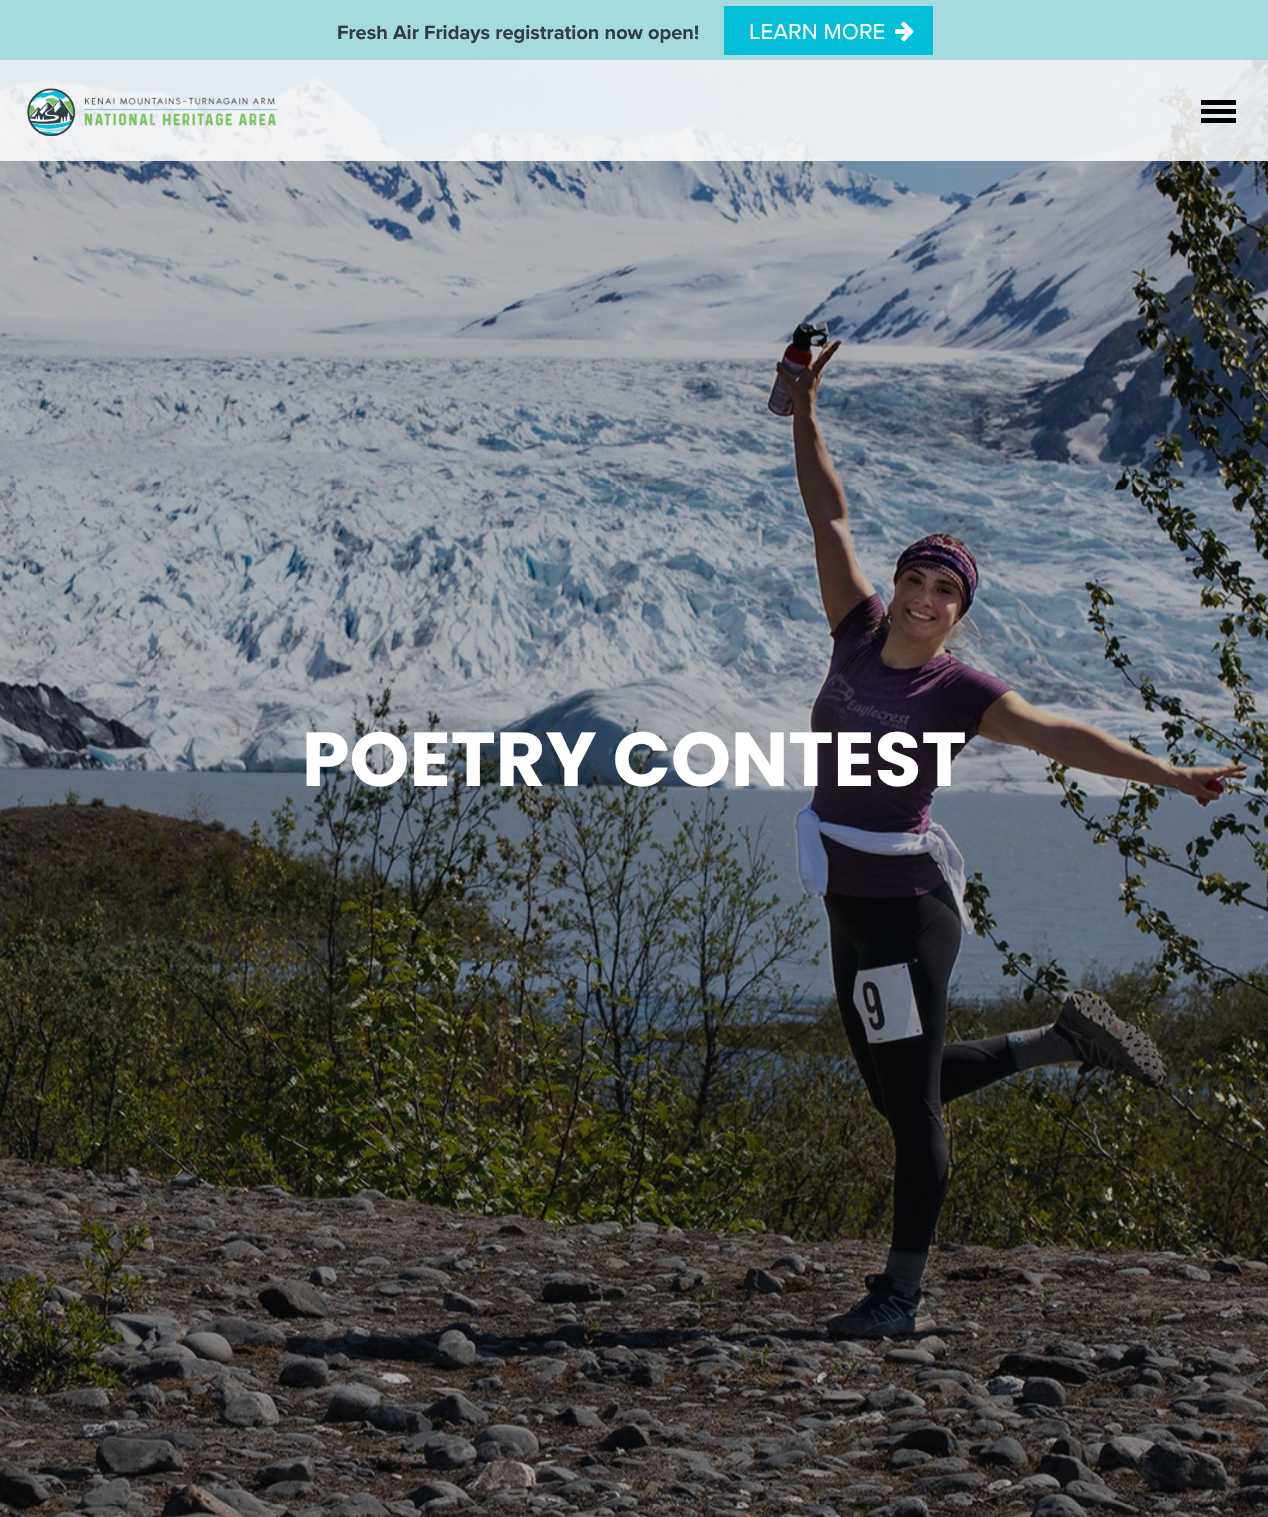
void draw(SkCanvas* canvas) {
  SkPaint paint;
  paint.setAntiAlias(true);
  auto face = [&](const char* family, int weight, float size, bool italic = false) {
    SkFontStyle style(weight, SkFontStyle::kNormal_Width,
      italic ? SkFontStyle::kItalic_Slant : SkFontStyle::kUpright_Slant);
    SkFont result(fontMgr->matchFamilyStyle(family, style), size);
    result.setSubpixel(true);
    return result;
  };
  auto paste = [&](const char* path, float x, float y, float w, float h) {
    auto image = SkImages::DeferredFromEncodedData(SkData::MakeFromFileName(path));
    canvas->drawImageRect(image, SkRect::MakeXYWH(x, y, w, h), SkSamplingOptions());
  };
  canvas->clear(0xffffffff);
  paste("img/3.png", 0, 60, 1268, 1457);
  {
    const struct { float x, y, w, h; SkColor color; } items[] = {
      {0, 60, 1268, 101, 0xd9ffffff},
      {0, 0, 1268, 60, 0xffa5dbdd},
      {724, 6, 209, 49, 0xff03bfd7},
    };
    for (auto [x, y, w, h, color] : items) {
      paint.setColor(color);
      canvas->drawRect(SkRect::MakeXYWH(x, y, w, h), paint);
    }
  }
  paste("img/1.png", 895, 21, 19, 21);
  paste("img/2.png", 27, 88, 251, 48);
  {
    const struct { float x, y, w, h; SkColor color; } items[] = {
      {1201, 109, 35, 5, 0xff000000},
      {1201, 100, 35, 5, 0xff000000},
      {1201, 118, 35, 5, 0xff000000},
    };
    for (auto [x, y, w, h, color] : items) {
      paint.setColor(color);
      canvas->drawRect(SkRect::MakeXYWH(x, y, w, h), paint);
    }
  }
  auto f0 = face("Proxima Nova", 700, 20);
  paint.setColor(0xff323e47);
  canvas->drawString("Fresh Air Fridays registration now open!", 337, 39, f0, paint);
  auto f1 = face("Proxima Nova", 400, 22.5f);
  paint.setColor(0xffffffff);
  canvas->drawString("LEARN MORE", 749, 39, f1, paint);
  auto f2 = face("Poppins", 700, 76.25f);
  canvas->drawString("POETRY CONTEST", 302, 786, f2, paint);
}
